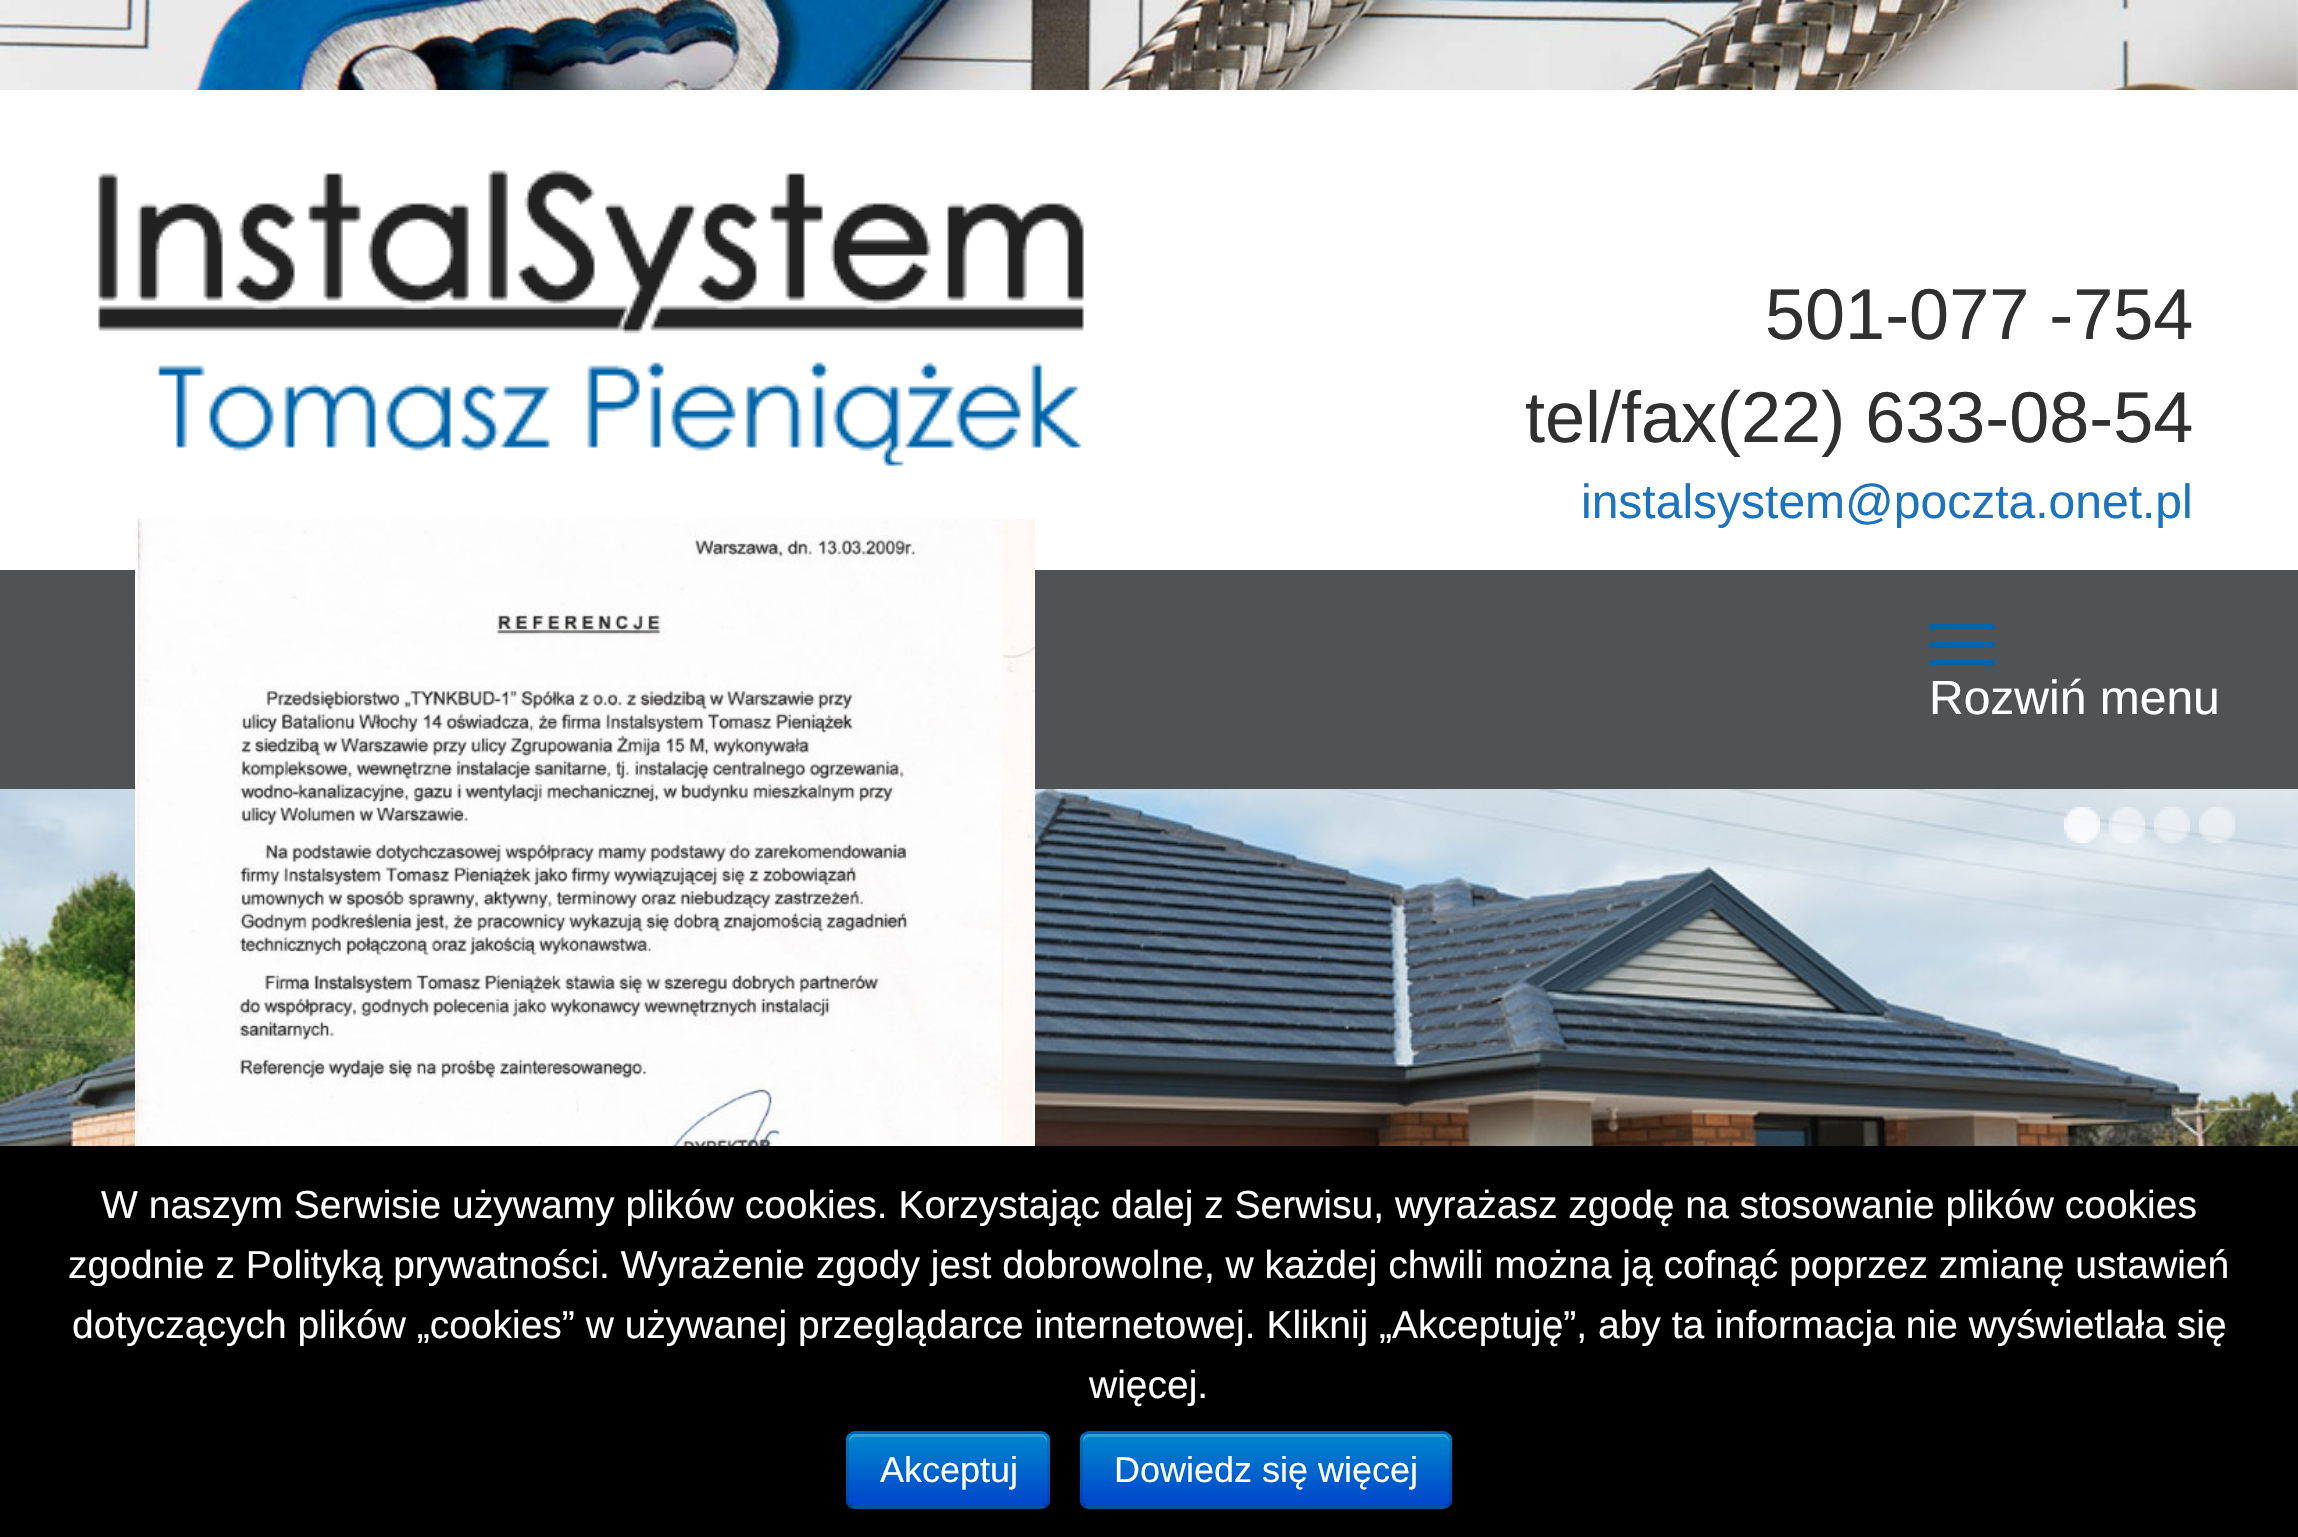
void draw(SkCanvas* canvas) {
  SkPaint paint;
  paint.setAntiAlias(true);
  auto face = [&](const char* family, int weight, float size, bool italic = false) {
    SkFontStyle style(weight, SkFontStyle::kNormal_Width,
      italic ? SkFontStyle::kItalic_Slant : SkFontStyle::kUpright_Slant);
    SkFont result(fontMgr->matchFamilyStyle(family, style), size);
    result.setSubpixel(true);
    return result;
  };
  auto paste = [&](const char* path, float x, float y, float w, float h) {
    auto image = SkImages::DeferredFromEncodedData(SkData::MakeFromFileName(path));
    canvas->drawImageRect(image, SkRect::MakeXYWH(x, y, w, h), SkSamplingOptions());
  };
  auto shape = [&](const char* data, bool evenOdd = false) {
    SkPath result = *SkParsePath::FromSVGString(data);
    if (evenOdd) result.setFillType(SkPathFillType::kEvenOdd);
    return result;
  };
  canvas->clear(0xffffffff);
  paste("img/1.png", 0, 0, 2298, 90);
  paste("img/2.png", 98, 170, 986, 296);
  paint.setColor(0xff505253);
  canvas->drawRect(SkRect::MakeXYWH(0, 570, 2298, 219), paint);
  paint.setColor(0xff0064a8);
  canvas->drawRoundRect(SkRect::MakeXYWH(1929, 624, 66, 6), 3, 3, paint);
  canvas->drawRoundRect(SkRect::MakeXYWH(1929, 642, 66, 6), 3, 3, paint);
  canvas->drawRoundRect(SkRect::MakeXYWH(1929, 660, 66, 6), 3, 3, paint);
  paste("img/3.png", 0, 789, 2298, 357);
  paste("img/4.png", 135, 519, 900, 627);
  paste("img/5.png", 2064, 807, 36, 36);
  paste("img/6.png", 2109, 807, 36, 36);
  paste("img/7.png", 2154, 807, 36, 36);
  paste("img/8.png", 2199, 807, 36, 36);
  paint.setColor(0xff000000);
  canvas->drawRect(SkRect::MakeXYWH(0, 1146, 2298, 391), paint);
  paint.setColor(0xff006dcc);
  canvas->drawRoundRect(SkRect::MakeXYWH(846, 1431, 204, 78), 9, 9, paint);
  canvas->save();
  canvas->clipPath(shape("M855 1431H1041C1046 1431 1050 1435 1050 1440V1500C1050 1505 1046 1509 1041 1509H855C850 1509 846 1505 846 1500V1440C846 1435 850 1431 855 1431Z"), true);
  {
    const SkColor colors[] = {0xff0088cc, 0xff0044cc};
    const float stops[] = {0, 1};
    const SkPoint ends[] = {{948, 1434}, {948, 1506}};
    paint.setShader(SkGradientShader::MakeLinear(ends, colors, stops, 2, SkTileMode::kClamp));
    paint.setAlpha(255);
  }
  canvas->drawRect(SkRect::MakeXYWH(846, 1434, 204, 72), paint);
  canvas->restore();
  paint.setShader(nullptr);
  paint.setColor(0x33ffffff);
  canvas->drawPath(shape("M855 1437H1041C1044 1437 1047 1440 1047 1443V1440C1047 1437 1044 1434 1041 1434H855C852 1434 849 1437 849 1440V1443C849 1440 852 1437 855 1437Z"), paint);
  paint.setStroke(true);
  paint.setStrokeWidth(3);
  paint.setColor(0x40000000);
  canvas->drawPath(shape("M1046.5 1505.5C1045 1506.5 1043 1507.5 1041 1507.5H855C853 1507.5 851 1506.5 849.5 1505.5"), paint);
  paint.setColor(0x1a000000);
  canvas->drawPath(shape("M849.5 1505.5C848.5 1504 847.5 1502 847.5 1500V1440C847.5 1438 848.5 1436 849.5 1434.5C851 1433.5 853 1432.5 855 1432.5H1041C1043 1432.5 1045 1433.5 1046.5 1434.5C1047.5 1436 1048.5 1438 1048.5 1440V1500C1048.5 1502 1047.5 1504 1046.5 1505.5"), paint);
  paint.setStroke(false);
  paint.setColor(0xff006dcc);
  canvas->drawRoundRect(SkRect::MakeXYWH(1080, 1431, 372, 78), 9, 9, paint);
  canvas->save();
  canvas->clipPath(shape("M1089 1431H1443C1448 1431 1452 1435 1452 1440V1500C1452 1505 1448 1509 1443 1509H1089C1084 1509 1080 1505 1080 1500V1440C1080 1435 1084 1431 1089 1431Z"), true);
  {
    const SkColor colors[] = {0xff0088cc, 0xff0044cc};
    const float stops[] = {0, 1};
    const SkPoint ends[] = {{1266, 1434}, {1266, 1506}};
    paint.setShader(SkGradientShader::MakeLinear(ends, colors, stops, 2, SkTileMode::kClamp));
    paint.setAlpha(255);
  }
  canvas->drawRect(SkRect::MakeXYWH(1080, 1434, 372, 72), paint);
  canvas->restore();
  paint.setShader(nullptr);
  paint.setColor(0x33ffffff);
  canvas->drawPath(shape("M1089 1437H1443C1446 1437 1449 1440 1449 1443V1440C1449 1437 1446 1434 1443 1434H1089C1086 1434 1083 1437 1083 1440V1443C1083 1440 1086 1437 1089 1437Z"), paint);
  paint.setStroke(true);
  paint.setColor(0x40000000);
  canvas->drawPath(shape("M1448.5 1505.5C1447 1506.5 1445 1507.5 1443 1507.5H1089C1087 1507.5 1085 1506.5 1083.5 1505.5"), paint);
  paint.setColor(0x1a000000);
  canvas->drawPath(shape("M1083.5 1505.5C1082.5 1504 1081.5 1502 1081.5 1500V1440C1081.5 1438 1082.5 1436 1083.5 1434.5C1085 1433.5 1087 1432.5 1089 1432.5H1443C1445 1432.5 1447 1433.5 1448.5 1434.5C1449.5 1436 1450.5 1438 1450.5 1440V1500C1450.5 1502 1449.5 1504 1448.5 1505.5"), paint);
  auto f0 = face("Liberation Sans", 400, 72);
  paint.setStroke(false);
  paint.setColor(0xff303030);
  canvas->drawString("501-077 -754", 1765, 339, f0, paint);
  canvas->drawString("tel/fax(22) 633-08-54", 1525, 442, f0, paint);
  auto f1 = face("Liberation Sans", 400, 48);
  paint.setColor(0xff1e73be);
  canvas->drawString("instalsystem@poczta.onet.pl", 1581, 518, f1, paint);
  paint.setColor(0xffffffff);
  canvas->drawString("Rozwiń menu", 1929, 714, f1, paint);
  auto f2 = face("Liberation Sans", 400, 39);
  {
    const struct { const char* s; float x, y; } items[] = {
      {"W naszym Serwisie używamy plików cookies. Korzystając dalej z Serwisu, wyrażasz zgodę na stosowanie plików cookies", 101, 1218},
      {"zgodnie z Polityką prywatności. Wyrażenie zgody jest dobrowolne, w każdej chwili można ją cofnąć poprzez zmianę ustawień", 68, 1278},
      {"dotyczących plików „cookies” w używanej przeglądarce internetowej. Kliknij „Akceptuję”, aby ta informacja nie wyświetlała się", 72, 1338},
      {"więcej.", 1089, 1398},
    };
    for (auto [s, x, y] : items) {
      canvas->drawString(s, x, y, f2, paint);
    }
  }
  auto f3 = face("Liberation Sans", 400, 36);
  canvas->drawString("Akceptuj", 880, 1482, f3, paint);
  canvas->drawString("Dowiedz się więcej", 1114, 1482, f3, paint);
}
